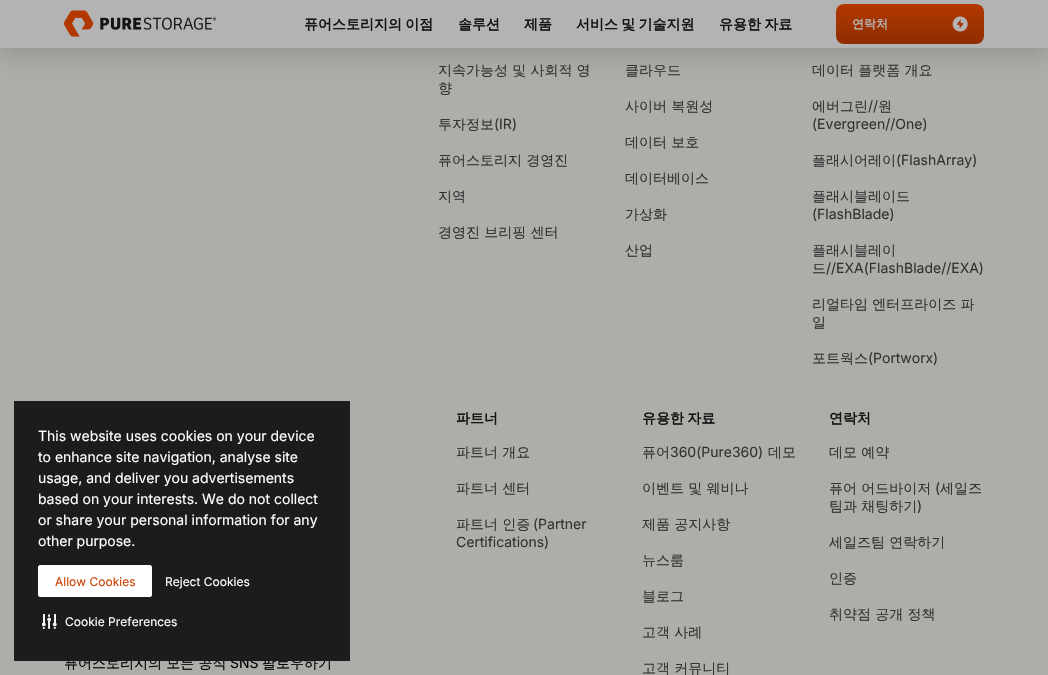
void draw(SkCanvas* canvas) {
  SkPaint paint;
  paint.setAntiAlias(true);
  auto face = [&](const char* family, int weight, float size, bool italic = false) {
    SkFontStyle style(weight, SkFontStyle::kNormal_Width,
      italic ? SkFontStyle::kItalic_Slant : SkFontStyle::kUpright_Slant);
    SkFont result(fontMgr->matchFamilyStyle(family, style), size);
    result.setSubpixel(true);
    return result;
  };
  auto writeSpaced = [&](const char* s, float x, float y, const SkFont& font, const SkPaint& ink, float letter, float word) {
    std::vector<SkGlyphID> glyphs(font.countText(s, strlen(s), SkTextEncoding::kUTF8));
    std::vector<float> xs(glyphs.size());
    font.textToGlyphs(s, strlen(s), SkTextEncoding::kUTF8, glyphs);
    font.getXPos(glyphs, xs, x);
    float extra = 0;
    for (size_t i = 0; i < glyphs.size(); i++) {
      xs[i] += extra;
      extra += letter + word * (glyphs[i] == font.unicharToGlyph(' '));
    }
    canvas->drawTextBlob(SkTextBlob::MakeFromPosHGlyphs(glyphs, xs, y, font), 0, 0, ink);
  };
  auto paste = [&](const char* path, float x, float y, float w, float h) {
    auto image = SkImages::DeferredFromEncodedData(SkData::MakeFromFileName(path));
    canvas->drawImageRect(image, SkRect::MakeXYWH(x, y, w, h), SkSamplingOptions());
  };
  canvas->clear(0xffafada9);
  paint.setColor(0x26000000);
  paint.setMaskFilter(SkMaskFilter::MakeBlur(kNormal_SkBlurStyle, 12));
  canvas->drawRect(SkRect::MakeXYWH(0, 8, 1048, 48), paint);
  paint.setMaskFilter(nullptr);
  paint.setColor(0xffb3b3b3);
  canvas->drawRect(SkRect::MakeXYWH(0, 0, 1048, 48), paint);
  paste("img/1.png", 64, 10, 30, 27);
  paste("img/2.png", 100, 17, 116, 13);
  {
    const SkColor colors[] = {0xffb23800, 0xff8f2d00};
    const float stops[] = {0, 1};
    const SkPoint ends[] = {{910, 4}, {910, 44}};
    paint.setShader(SkGradientShader::MakeLinear(ends, colors, stops, 2, SkTileMode::kClamp));
    paint.setAlpha(255);
  }
  canvas->drawRoundRect(SkRect::MakeXYWH(836, 4, 148, 40), 8, 8, paint);
  paste("img/3.png", 952, 16, 16, 16);
  auto f0 = face("WenQuanYi Zen Hei", 700, 14);
  paint.setShader(nullptr);
  paint.setColor(0xff141414);
  writeSpaced("퓨어스토리지의 이점", 304, 29, f0, paint, 0, -1);
  canvas->drawString("솔루션", 458, 29, f0, paint);
  canvas->drawString("제품", 524, 29, f0, paint);
  writeSpaced("서비스 및 기술지원", 576, 29, f0, paint, 0, -1);
  writeSpaced("유용한 자료", 719, 29, f0, paint, 0, -1);
  auto f1 = face("WenQuanYi Zen Hei", 700, 12);
  paint.setColor(0xffb3b3b3);
  canvas->drawString("연락처", 852, 28, f1, paint);
  auto f2 = face("WenQuanYi Zen Hei", 500, 14);
  paint.setColor(0xff000000);
  canvas->drawString("퓨어스토리지의 모든 공식", 64, 668, f2, paint);
  auto f3 = face("Inter", 400, 14);
  canvas->drawString("SNS", 230, 668, f3, paint);
  canvas->drawString("팔로우하기", 262, 668, f2, paint);
  paint.setColor(0xff323232);
  {
    const struct { const char* s; float x, y; } items[] = {
      {"지속가능성 및 사회적 영", 438, 75},
      {"향", 438, 93},
      {"투자정보", 438, 129},
    };
    for (auto [s, x, y] : items) {
      canvas->drawString(s, x, y, f2, paint);
    }
  }
  canvas->drawString("(IR)", 494, 129, f3, paint);
  {
    const struct { const char* s; float x, y; } items[] = {
      {"퓨어스토리지 경영진", 438, 165},
      {"지역", 438, 201},
      {"경영진 브리핑 센터", 438, 237},
      {"클라우드", 625, 75},
      {"사이버 복원성", 625, 111},
      {"데이터 보호", 625, 147},
      {"데이터베이스", 625, 183},
      {"가상화", 625, 219},
      {"산업", 625, 255},
      {"데이터 플랫폼 개요", 812, 75},
      {"에버그린", 812, 111},
    };
    for (auto [s, x, y] : items) {
      canvas->drawString(s, x, y, f2, paint);
    }
  }
  canvas->drawString("//", 868, 111, f3, paint);
  canvas->drawString("원", 878, 111, f2, paint);
  canvas->drawString("(Evergreen//One)", 812, 129, f3, paint);
  canvas->drawString("플래시어레이", 812, 165, f2, paint);
  canvas->drawString("(FlashArray)", 896, 165, f3, paint);
  canvas->drawString("플래시블레이드", 812, 201, f2, paint);
  canvas->drawString("(FlashBlade)", 812, 219, f3, paint);
  canvas->drawString("플래시블레이", 812, 255, f2, paint);
  canvas->drawString("드", 812, 273, f2, paint);
  canvas->drawString("//EXA(FlashBlade//EXA)", 826, 273, f3, paint);
  {
    const struct { const char* s; float x, y; } items[] = {
      {"리얼타임 엔터프라이즈 파", 812, 309},
      {"일", 812, 327},
      {"포트웍스", 812, 363},
    };
    for (auto [s, x, y] : items) {
      canvas->drawString(s, x, y, f2, paint);
    }
  }
  canvas->drawString("(Portworx)", 868, 363, f3, paint);
  paint.setColor(0xff141414);
  canvas->drawString("파트너", 456, 423, f0, paint);
  paint.setColor(0xff323232);
  {
    const struct { const char* s; float x, y; } items[] = {
      {"파트너 개요", 456, 457},
      {"파트너 센터", 456, 493},
      {"파트너 인증", 456, 529},
    };
    for (auto [s, x, y] : items) {
      canvas->drawString(s, x, y, f2, paint);
    }
  }
  canvas->drawString("(Partner", 533, 529, f3, paint);
  canvas->drawString("Certifications)", 456, 547, f3, paint);
  paint.setColor(0xff141414);
  writeSpaced("유용한 자료", 642, 423, f0, paint, 0, -1);
  paint.setColor(0xff323232);
  canvas->drawString("퓨어", 642, 457, f2, paint);
  canvas->drawString("360(Pure360)", 670, 457, f3, paint);
  {
    const struct { const char* s; float x, y; } items[] = {
      {"데모", 768, 457},
      {"이벤트 및 웨비나", 642, 493},
      {"제품 공지사항", 642, 529},
      {"뉴스룸", 642, 565},
      {"블로그", 642, 601},
      {"고객 사례", 642, 637},
      {"고객 커뮤니티", 642, 673},
    };
    for (auto [s, x, y] : items) {
      canvas->drawString(s, x, y, f2, paint);
    }
  }
  paint.setColor(0xff141414);
  canvas->drawString("연락처", 829, 423, f0, paint);
  paint.setColor(0xff323232);
  canvas->drawString("데모 예약", 829, 457, f2, paint);
  canvas->drawString("퓨어 어드바이저", 829, 493, f2, paint);
  canvas->drawString("(", 935, 493, f3, paint);
  canvas->drawString("세일즈", 940, 493, f2, paint);
  canvas->drawString("팀과 채팅하기", 829, 511, f2, paint);
  canvas->drawString(")", 917, 511, f3, paint);
  {
    const struct { const char* s; float x, y; } items[] = {
      {"세일즈팀 연락하기", 829, 547},
      {"인증", 829, 583},
      {"취약점 공개 정책", 829, 619},
    };
    for (auto [s, x, y] : items) {
      canvas->drawString(s, x, y, f2, paint);
    }
  }
  paint.setColor(0xff1c1c1c);
  canvas->drawRect(SkRect::MakeXYWH(14, 401, 336, 260), paint);
  paint.setColor(0xffffffff);
  {
    const struct { const char* s; float x, y; } items[] = {
      {"This website uses cookies on your device", 38, 441},
      {"to enhance site navigation, analyse site", 38, 462},
      {"usage, and deliver you advertisements", 38, 483},
      {"based on your interests. We do not collect", 38, 504},
      {"or share your personal information for any", 38, 525},
      {"other purpose.", 38, 546},
    };
    for (auto [s, x, y] : items) {
      canvas->drawString(s, x, y, f3, paint);
    }
  }
  canvas->drawRoundRect(SkRect::MakeXYWH(38.5f, 565.5f, 113, 31), 1.5f, 1.5f, paint);
  paint.setStroke(true);
  paint.setStrokeWidth(1);
  canvas->drawRoundRect(SkRect::MakeXYWH(38.5f, 565.5f, 113, 31), 1.5f, 1.5f, paint);
  auto f4 = face("Inter", 400, 12);
  paint.setStroke(false);
  paint.setColor(0xffcc4000);
  canvas->drawString("Allow Cookies", 55, 586, f4, paint);
  paint.setColor(0xffffffff);
  canvas->drawString("Reject Cookies", 165, 586, f4, paint);
  paste("img/4.png", 42, 614, 15, 15);
  canvas->drawString("Cookie Preferences", 65, 626, f4, paint);
}
